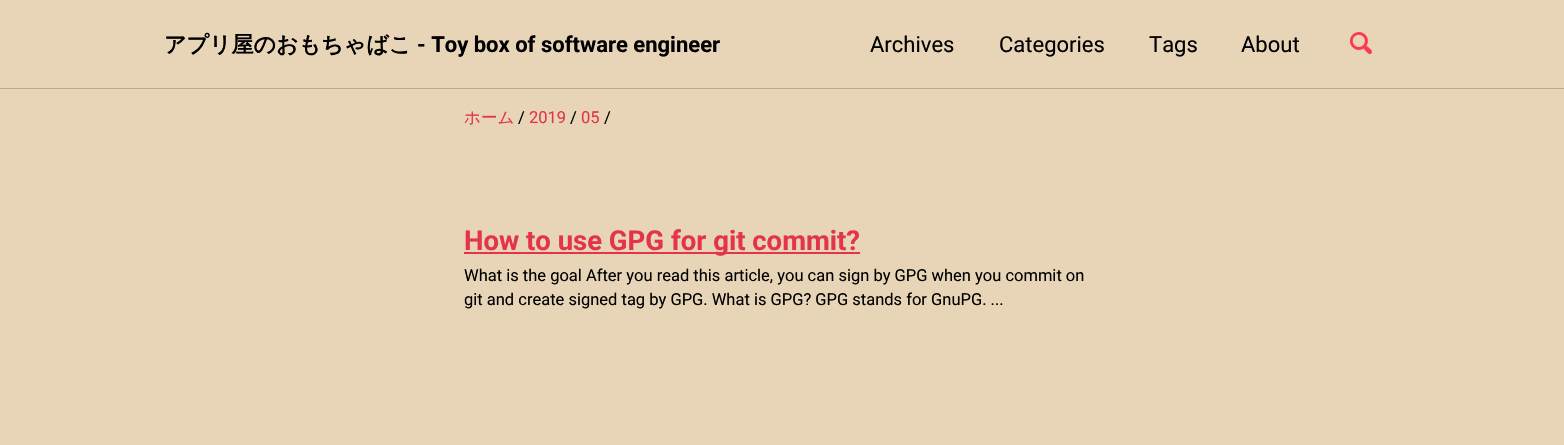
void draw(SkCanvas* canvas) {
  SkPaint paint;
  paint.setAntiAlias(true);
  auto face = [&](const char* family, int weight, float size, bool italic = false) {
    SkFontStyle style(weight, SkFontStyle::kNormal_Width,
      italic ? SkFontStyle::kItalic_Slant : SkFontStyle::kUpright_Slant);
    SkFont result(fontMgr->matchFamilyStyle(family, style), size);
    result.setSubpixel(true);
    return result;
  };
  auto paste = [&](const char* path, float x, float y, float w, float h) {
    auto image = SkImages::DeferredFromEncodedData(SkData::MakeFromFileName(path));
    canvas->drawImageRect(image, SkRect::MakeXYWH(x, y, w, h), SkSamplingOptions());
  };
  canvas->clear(0xffe8d5b7);
  paint.setColor(0xffbaaa92);
  canvas->drawRect(SkRect::MakeXYWH(0, 88, 1564, 1), paint);
  paste("img/1.png", 1350, 32, 22, 23);
  paint.setColor(0xffe3344a);
  canvas->drawRect(SkRect::MakeXYWH(464, 252, 396, 2), paint);
  auto f0 = face("WenQuanYi Zen Hei", 700, 22);
  paint.setColor(0xff000000);
  canvas->drawString("アプリ屋のおもちゃばこ", 164, 52, f0, paint);
  auto f1 = face("Roboto", 700, 22);
  canvas->drawString("- Toy box of software engineer", 417, 52, f1, paint);
  auto f2 = face("Roboto", 400, 22);
  {
    const struct { const char* s; float x, y; } items[] = {
      {"Archives", 870, 52},
      {"Categories", 999, 52},
      {"Tags", 1149, 52},
      {"About", 1241, 52},
    };
    for (auto [s, x, y] : items) {
      canvas->drawString(s, x, y, f2, paint);
    }
  }
  auto f3 = face("WenQuanYi Zen Hei", 500, 16.5f);
  paint.setColor(0xffe3344a);
  canvas->drawString("ホーム", 464, 123, f3, paint);
  auto f4 = face("Roboto", 400, 16.5f);
  paint.setColor(0xff000000);
  canvas->drawString("/", 518, 123, f4, paint);
  paint.setColor(0xffe3344a);
  canvas->drawString("2019", 529, 123, f4, paint);
  paint.setColor(0xff000000);
  canvas->drawString("/", 570, 123, f4, paint);
  paint.setColor(0xffe3344a);
  canvas->drawString("05", 581, 123, f4, paint);
  paint.setColor(0xff000000);
  canvas->drawString("/", 604, 123, f4, paint);
  auto f5 = face("Roboto", 700, 27.5f);
  paint.setColor(0xffe3344a);
  canvas->drawString("How to use GPG for git commit?", 464, 250, f5, paint);
  paint.setColor(0xff000000);
  canvas->drawString("What is the goal After you read this article, you can sign by GPG when you commit on", 464, 281, f4, paint);
  canvas->drawString("git and create signed tag by GPG. What is GPG? GPG stands for GnuPG. ...", 464, 305, f4, paint);
}
